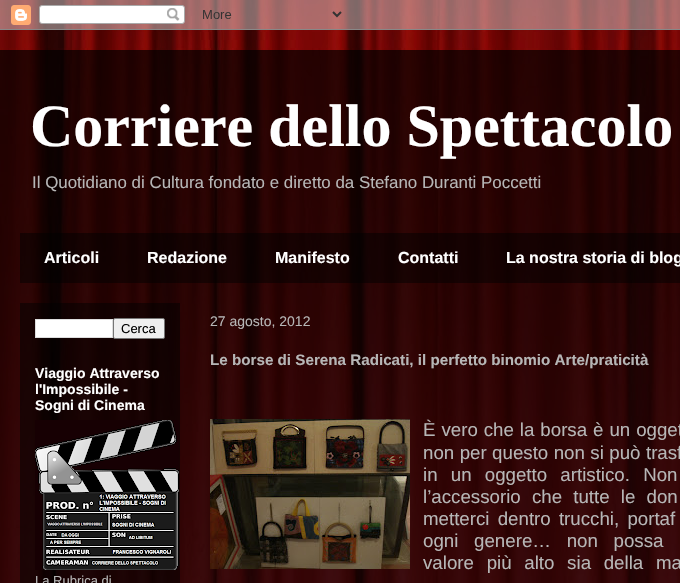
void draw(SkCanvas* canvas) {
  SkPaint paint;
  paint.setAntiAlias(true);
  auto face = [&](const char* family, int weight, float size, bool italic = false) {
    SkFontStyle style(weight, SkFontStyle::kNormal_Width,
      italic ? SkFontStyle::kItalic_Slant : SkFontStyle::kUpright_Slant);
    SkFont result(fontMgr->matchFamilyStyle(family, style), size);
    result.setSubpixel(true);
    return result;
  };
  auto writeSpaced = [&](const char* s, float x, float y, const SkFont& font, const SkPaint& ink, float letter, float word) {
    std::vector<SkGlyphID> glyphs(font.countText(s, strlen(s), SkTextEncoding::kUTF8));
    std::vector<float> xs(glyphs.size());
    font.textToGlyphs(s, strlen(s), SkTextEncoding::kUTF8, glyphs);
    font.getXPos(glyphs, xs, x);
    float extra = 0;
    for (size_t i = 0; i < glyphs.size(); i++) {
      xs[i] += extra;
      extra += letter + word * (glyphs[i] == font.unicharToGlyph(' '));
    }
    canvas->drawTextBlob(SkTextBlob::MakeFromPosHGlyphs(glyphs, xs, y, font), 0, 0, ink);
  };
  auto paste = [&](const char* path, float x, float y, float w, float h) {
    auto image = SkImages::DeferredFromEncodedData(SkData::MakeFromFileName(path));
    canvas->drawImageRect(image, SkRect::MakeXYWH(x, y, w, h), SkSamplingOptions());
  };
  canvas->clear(0xffffffff);
  paste("img/1.png", 0, 0, 680, 583);
  paste("img/2.png", 0, 0, 680, 30);
  paint.setColor(0x80000000);
  canvas->drawRect(SkRect::MakeXYWH(20, 233, 660, 50), paint);
  canvas->drawRect(SkRect::MakeXYWH(20, 303, 160, 280), paint);
  paint.setColor(0xffffffff);
  canvas->drawRect(SkRect::MakeXYWH(35.5f, 319.5f, 77, 18), paint);
  paint.setStroke(true);
  paint.setStrokeWidth(1);
  paint.setColor(0xffdddddd);
  canvas->drawRect(SkRect::MakeXYWH(35.5f, 319.5f, 77, 18), paint);
  paint.setStroke(false);
  paint.setColor(0xffefefef);
  canvas->drawRoundRect(SkRect::MakeXYWH(113.5f, 318.5f, 51, 20), 1.5f, 1.5f, paint);
  paint.setStroke(true);
  paint.setColor(0xff767676);
  canvas->drawRoundRect(SkRect::MakeXYWH(113.5f, 318.5f, 51, 20), 1.5f, 1.5f, paint);
  paste("img/3.png", 35, 420, 144, 150);
  paste("img/4.png", 210, 419, 200, 150);
  auto f0 = face("Liberation Serif", 700, 60);
  paint.setStroke(false);
  paint.setColor(0xffffffff);
  canvas->drawString("Corriere dello Spettacolo", 30, 146, f0, paint);
  auto f1 = face("Liberation Sans", 400, 16.9f);
  paint.setColor(0xffb6b6b6);
  canvas->drawString("Il Quotidiano di Cultura fondato e diretto da Stefano Duranti Poccetti", 32, 188, f1, paint);
  auto f2 = face("Liberation Sans", 700, 16);
  paint.setColor(0xffffffff);
  {
    const struct { const char* s; float x, y; } items[] = {
      {"Articoli", 44, 263},
      {"Redazione", 147, 263},
      {"Manifesto", 275, 263},
      {"Contatti", 398, 263},
      {"La nostra storia di blog", 506, 263},
    };
    for (auto [s, x, y] : items) {
      canvas->drawString(s, x, y, f2, paint);
    }
  }
  auto f3 = face("Liberation Sans", 400, 13);
  paint.setColor(0xff000000);
  canvas->drawString("Cerca", 121, 333, f3, paint);
  auto f4 = face("Liberation Sans", 700, 14);
  paint.setColor(0xffffffff);
  {
    const struct { const char* s; float x, y; } items[] = {
      {"Viaggio Attraverso", 35, 378},
      {"l'Impossibile -", 35, 394},
      {"Sogni di Cinema", 35, 410},
    };
    for (auto [s, x, y] : items) {
      canvas->drawString(s, x, y, f4, paint);
    }
  }
  paint.setColor(0xffb6b6b6);
  canvas->drawString("La Rubrica di", 35, 585, f3, paint);
  auto f5 = face("Liberation Sans", 400, 14);
  canvas->drawString("27 agosto, 2012", 210, 326, f5, paint);
  auto f6 = face("Liberation Sans", 700, 15.2f);
  canvas->drawString("Le borse di Serena Radicati, il perfetto binomio Arte/praticità", 210, 365, f6, paint);
  auto f7 = face("Liberation Sans", 400, 18.7f);
  writeSpaced("È vero che la borsa è un ogget", 423, 436, f7, paint, 0, 0.75f);
  writeSpaced("non per questo non si può trasf", 423, 459, f7, paint, 0, 0.25f);
  writeSpaced("in un oggetto artistico. Non", 423, 481, f7, paint, 0, 8);
  writeSpaced("l’accessorio che tutte le don", 423, 503, f7, paint, 0, 6);
  writeSpaced("metterci dentro trucchi, portaf", 423, 525, f7, paint, 0, 3);
  writeSpaced("ogni genere… non possa", 423, 547, f7, paint, 0, 10.5f);
  writeSpaced("valore più alto sia della ma", 423, 569, f7, paint, 0, 7.5f);
}
